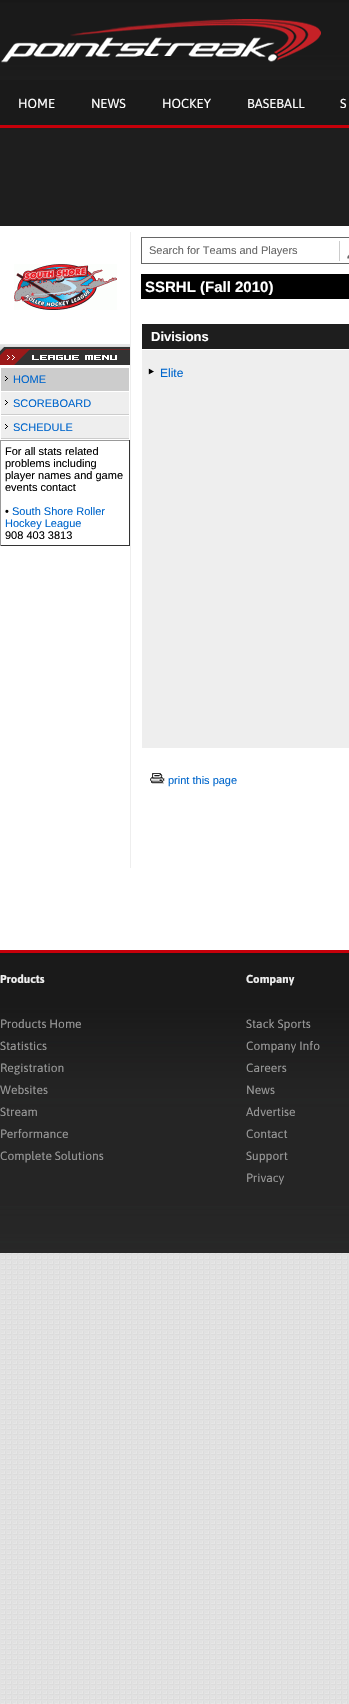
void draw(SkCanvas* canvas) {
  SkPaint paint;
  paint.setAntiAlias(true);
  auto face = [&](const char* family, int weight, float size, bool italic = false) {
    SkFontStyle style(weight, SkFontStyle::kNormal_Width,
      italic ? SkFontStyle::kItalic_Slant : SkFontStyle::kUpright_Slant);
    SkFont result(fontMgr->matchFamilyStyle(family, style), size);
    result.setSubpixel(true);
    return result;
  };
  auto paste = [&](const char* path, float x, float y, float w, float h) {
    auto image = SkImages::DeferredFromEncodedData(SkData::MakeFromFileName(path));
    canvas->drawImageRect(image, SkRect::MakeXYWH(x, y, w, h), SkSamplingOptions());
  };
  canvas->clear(0xffffffff);
  paste("img/1.png", 0, 1253, 349, 451);
  paste("img/2.png", 0, 0, 349, 80);
  paint.setColor(0xffc6000a);
  canvas->drawRect(SkRect::MakeXYWH(0, 125, 349, 3), paint);
  paste("img/3.png", 1, 19, 320, 44);
  {
    const struct { float x, y, w, h; SkColor color; } items[] = {
      {0, 80, 349, 45, 0xff1a1a1a},
      {0, 128, 349, 98, 0xff1e1e1e},
      {130, 232, 1, 636, 0xffeeeeee},
    };
    for (auto [x, y, w, h, color] : items) {
      paint.setColor(color);
      canvas->drawRect(SkRect::MakeXYWH(x, y, w, h), paint);
    }
  }
  paste("img/4.png", 14, 264, 103, 46);
  paste("img/5.png", 0, 344, 130, 21);
  paint.setColor(0xffcccccc);
  canvas->drawRect(SkRect::MakeXYWH(1, 368, 128, 23), paint);
  paste("img/6.png", 5, 376, 3, 5);
  paint.setColor(0xffeeeeee);
  canvas->drawRect(SkRect::MakeXYWH(1, 392, 128, 22), paint);
  paint.setColor(0xffcccccc);
  canvas->drawRect(SkRect::MakeXYWH(1, 414, 128, 1), paint);
  paste("img/7.png", 5, 400, 3, 5);
  paint.setColor(0xffeeeeee);
  canvas->drawRect(SkRect::MakeXYWH(1, 416, 128, 22), paint);
  paint.setColor(0xffcccccc);
  canvas->drawRect(SkRect::MakeXYWH(1, 438, 128, 1), paint);
  paste("img/7.png", 5, 424, 3, 5);
  {
    const struct { float x, y, w, h; SkColor color; } items[] = {
      {0, 440, 130, 1, 0xff999999},
      {129, 440, 1, 106, 0xff333333},
      {0, 545, 130, 1, 0xff333333},
      {0, 440, 1, 106, 0xff999999},
    };
    for (auto [x, y, w, h, color] : items) {
      paint.setColor(color);
      canvas->drawRect(SkRect::MakeXYWH(x, y, w, h), paint);
    }
  }
  paint.setStroke(true);
  paint.setStrokeWidth(1);
  paint.setColor(0xff666666);
  canvas->drawRect(SkRect::MakeXYWH(141.5f, 237.5f, 198, 26), paint);
  paste("img/8.png", 339, 237, 10, 27);
  paint.setStroke(false);
  {
    const struct { float x, y, w, h; SkColor color; } items[] = {
      {141, 274, 208, 25, 0xff000000},
      {142, 324, 207, 25, 0xff1e1e1e},
      {142, 350, 207, 398, 0xffeeeeee},
    };
    for (auto [x, y, w, h, color] : items) {
      paint.setColor(color);
      canvas->drawRect(SkRect::MakeXYWH(x, y, w, h), paint);
    }
  }
  paste("img/9.png", 148, 368, 6, 7);
  paste("img/10.png", 150, 773, 15, 11);
  paste("img/11.png", 0, 953, 349, 300);
  paint.setColor(0xffc6000a);
  canvas->drawRect(SkRect::MakeXYWH(0, 950, 349, 3), paint);
  auto f0 = face("Asap", 400, 13);
  paint.setColor(0xffffffff);
  {
    const struct { const char* s; float x, y; } items[] = {
      {"HOME", 18, 108},
      {"NEWS", 91, 108},
      {"HOCKEY", 162, 108},
      {"BASEBALL", 247, 108},
      {"S", 340, 108},
    };
    for (auto [s, x, y] : items) {
      canvas->drawString(s, x, y, f0, paint);
    }
  }
  auto f1 = face("Liberation Sans", 400, 11);
  paint.setColor(0xff0066cc);
  {
    const struct { const char* s; float x, y; } items[] = {
      {"HOME", 13, 383},
      {"SCOREBOARD", 13, 407},
      {"SCHEDULE", 13, 431},
    };
    for (auto [s, x, y] : items) {
      canvas->drawString(s, x, y, f1, paint);
    }
  }
  paint.setColor(0xff000000);
  {
    const struct { const char* s; float x, y; } items[] = {
      {"For all stats related", 5, 455},
      {"problems including", 5, 467},
      {"player names and game", 5, 479},
      {"events contact", 5, 491},
      {"•", 5, 515},
    };
    for (auto [s, x, y] : items) {
      canvas->drawString(s, x, y, f1, paint);
    }
  }
  paint.setColor(0xff0066cc);
  canvas->drawString("South Shore Roller", 12, 515, f1, paint);
  canvas->drawString("Hockey League", 5, 527, f1, paint);
  paint.setColor(0xff000000);
  canvas->drawString("908 403 3813", 5, 539, f1, paint);
  paint.setColor(0xff666666);
  canvas->drawString("Search for Teams and Players", 149, 254, f1, paint);
  auto f2 = face("Liberation Sans", 700, 15);
  paint.setColor(0xffffffff);
  canvas->drawString("SSRHL (Fall 2010)", 145, 292, f2, paint);
  auto f3 = face("Liberation Sans", 700, 13);
  canvas->drawString("Divisions", 151, 341, f3, paint);
  auto f4 = face("Liberation Sans", 400, 12);
  paint.setColor(0xff0066cc);
  canvas->drawString("Elite", 160, 377, f4, paint);
  canvas->drawString("print this page", 168, 784, f1, paint);
  auto f5 = face("Asap", 700, 11.5f);
  paint.setColor(0xffeeeeee);
  canvas->drawString("Products", 0, 983, f5, paint);
  auto f6 = face("Asap", 400, 12);
  paint.setColor(0xff999999);
  {
    const struct { const char* s; float x, y; } items[] = {
      {"Products Home", 0, 1028},
      {"Statistics", 0, 1050},
      {"Registration", 0, 1072},
      {"Websites", 0, 1094},
      {"Stream", 0, 1116},
      {"Performance", 0, 1138},
      {"Complete Solutions", 0, 1160},
    };
    for (auto [s, x, y] : items) {
      canvas->drawString(s, x, y, f6, paint);
    }
  }
  paint.setColor(0xffeeeeee);
  canvas->drawString("Company", 246, 983, f5, paint);
  paint.setColor(0xff999999);
  {
    const struct { const char* s; float x, y; } items[] = {
      {"Stack Sports", 246, 1028},
      {"Company Info", 246, 1050},
      {"Careers", 246, 1072},
      {"News", 246, 1094},
      {"Advertise", 246, 1116},
      {"Contact", 246, 1138},
      {"Support", 246, 1160},
      {"Privacy", 246, 1182},
    };
    for (auto [s, x, y] : items) {
      canvas->drawString(s, x, y, f6, paint);
    }
  }
}
